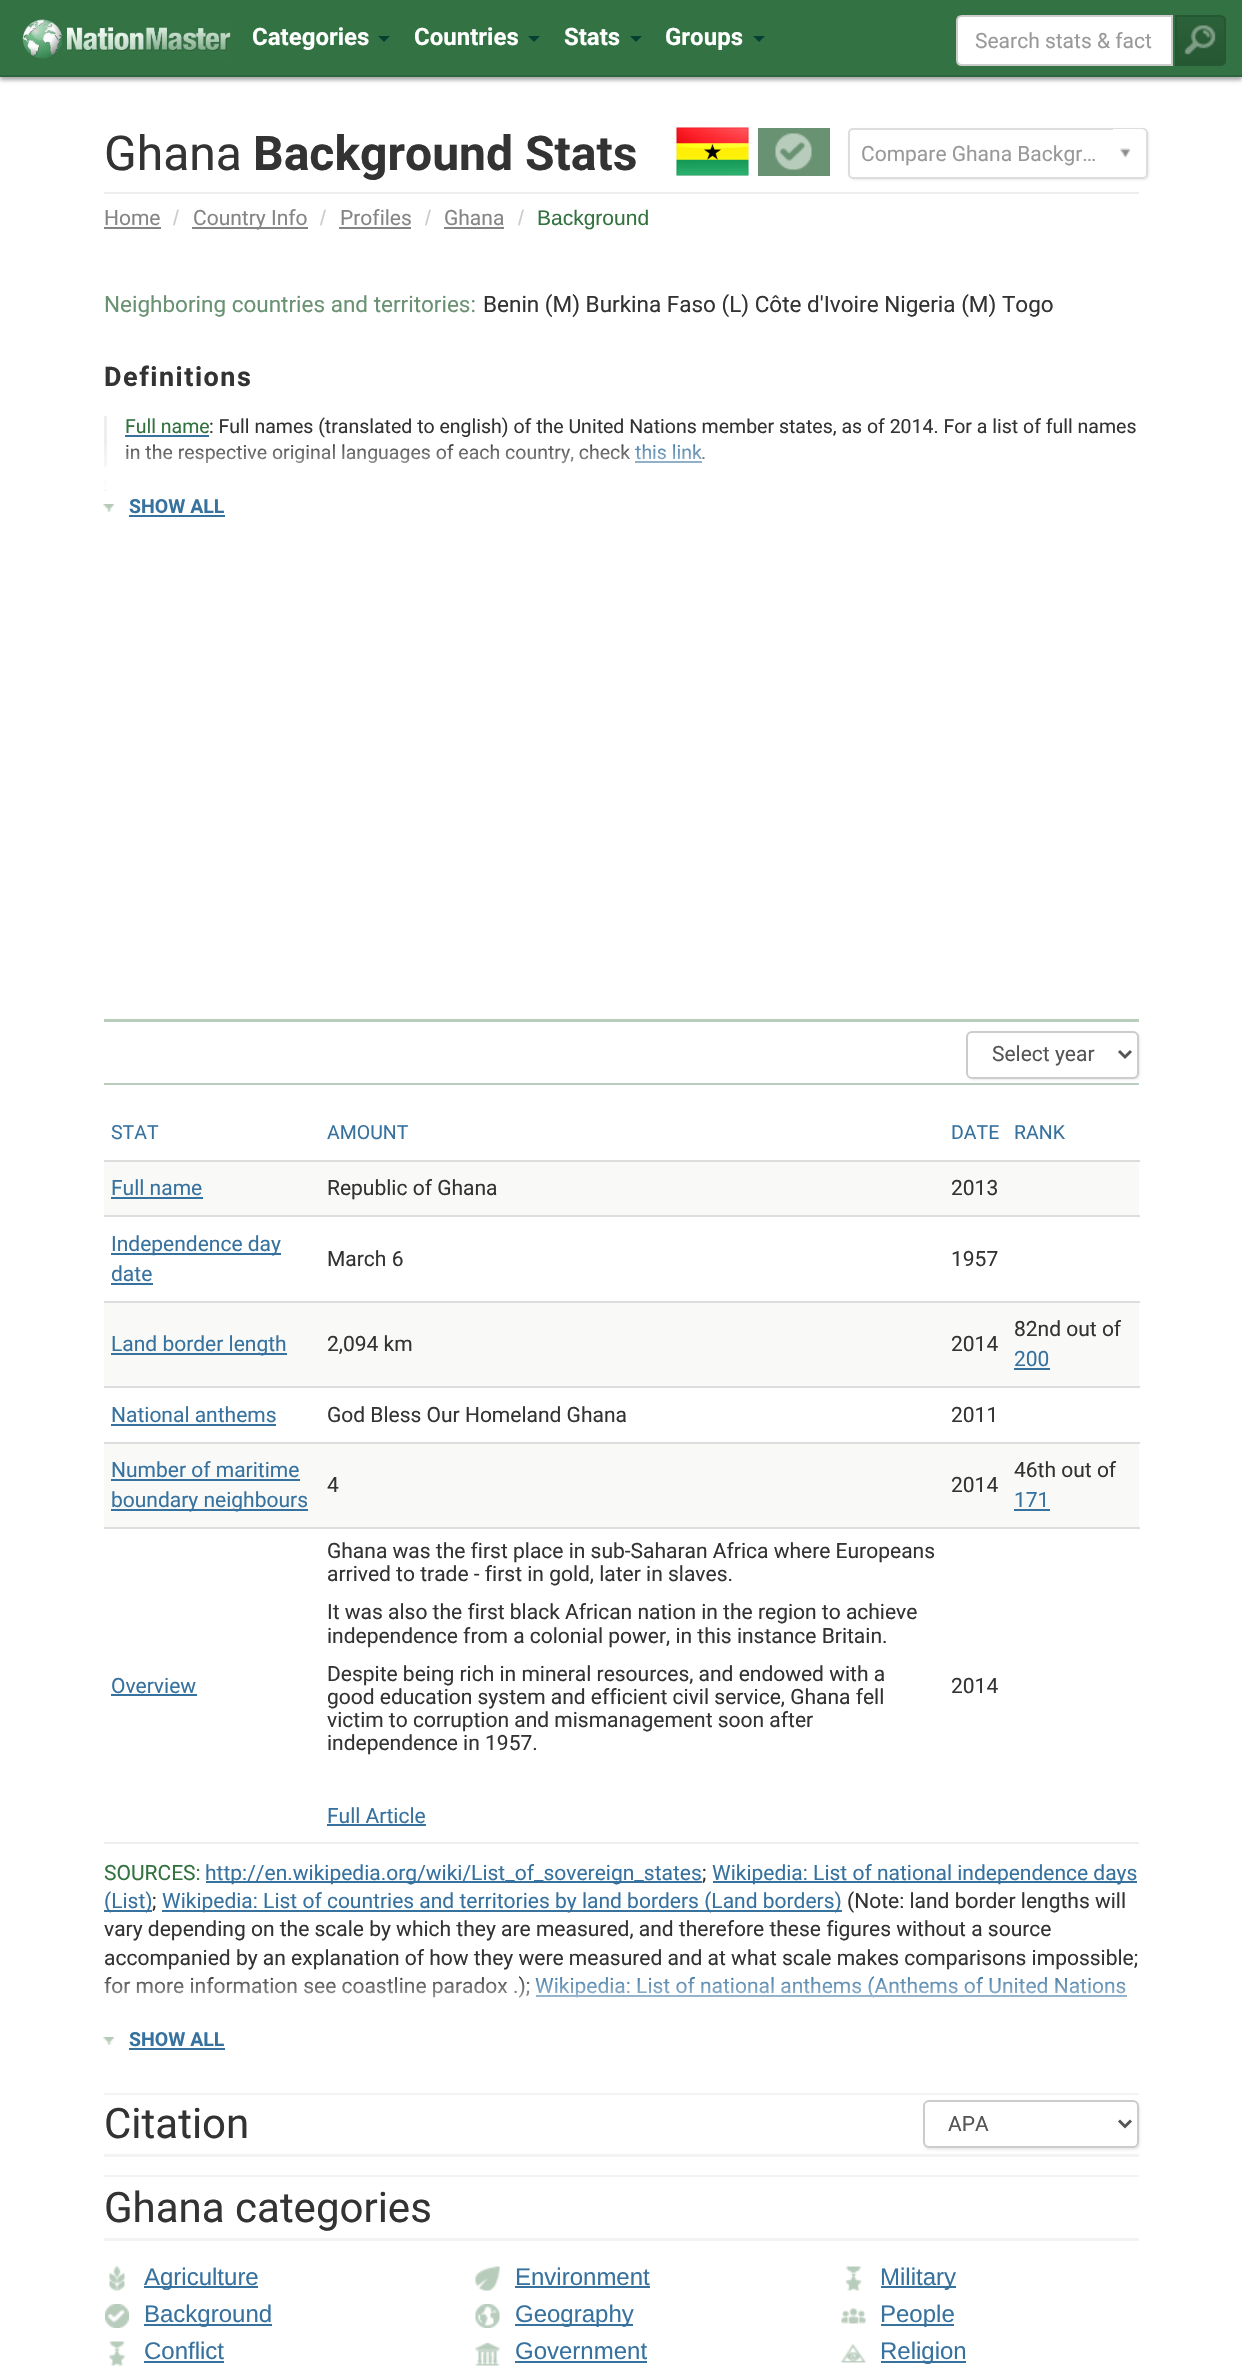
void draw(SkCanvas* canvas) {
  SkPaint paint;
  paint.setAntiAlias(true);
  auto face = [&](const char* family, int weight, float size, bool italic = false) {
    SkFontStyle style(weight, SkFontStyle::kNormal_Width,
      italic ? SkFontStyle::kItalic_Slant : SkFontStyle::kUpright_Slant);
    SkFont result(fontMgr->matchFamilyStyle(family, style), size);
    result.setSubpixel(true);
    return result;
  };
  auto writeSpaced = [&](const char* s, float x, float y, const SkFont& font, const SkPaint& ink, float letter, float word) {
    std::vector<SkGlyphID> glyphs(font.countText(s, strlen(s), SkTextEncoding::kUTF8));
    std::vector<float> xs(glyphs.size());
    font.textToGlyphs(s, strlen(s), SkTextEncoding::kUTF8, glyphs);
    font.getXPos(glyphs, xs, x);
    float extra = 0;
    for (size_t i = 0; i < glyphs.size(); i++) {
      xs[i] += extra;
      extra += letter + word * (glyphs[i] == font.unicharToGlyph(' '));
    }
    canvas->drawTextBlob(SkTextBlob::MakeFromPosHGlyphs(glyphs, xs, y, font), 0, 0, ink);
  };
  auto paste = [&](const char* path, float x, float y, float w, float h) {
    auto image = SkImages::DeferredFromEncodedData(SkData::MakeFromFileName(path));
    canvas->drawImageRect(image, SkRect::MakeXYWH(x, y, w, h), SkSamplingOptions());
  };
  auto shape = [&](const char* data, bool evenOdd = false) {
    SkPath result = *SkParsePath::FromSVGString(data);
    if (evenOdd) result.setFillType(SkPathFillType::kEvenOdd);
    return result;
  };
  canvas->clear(0xffffffff);
  paint.setColor(0x59000000);
  paint.setMaskFilter(SkMaskFilter::MakeBlur(kNormal_SkBlurStyle, 2));
  canvas->drawRect(SkRect::MakeXYWH(0, 3, 1242, 77), paint);
  paint.setMaskFilter(nullptr);
  paint.setColor(0xff337242);
  canvas->drawRect(SkRect::MakeXYWH(0, 0, 1242, 75), paint);
  paint.setColor(0xff2c653d);
  canvas->drawRect(SkRect::MakeXYWH(0, 75, 1242, 2), paint);
  paste("img/1.png", 22, 19, 209, 40);
  paint.setColor(0xff073f33);
  canvas->drawPath(shape("M378 36H390L384 42Z"), paint);
  canvas->drawPath(shape("M528 36H540L534 42Z"), paint);
  canvas->drawPath(shape("M630 36H642L636 42Z"), paint);
  canvas->drawPath(shape("M753 36H765L759 42Z"), paint);
  paint.setColor(0xffffffff);
  canvas->drawPath(shape("M962 16H1172V65H962C959 65 957 63 957 60V21C957 18 959 16 962 16Z"), paint);
  paint.setStroke(true);
  paint.setStrokeWidth(2);
  paint.setColor(0xffcccccc);
  canvas->drawPath(shape("M962 16H1172V65H962C959 65 957 63 957 60V21C957 18 959 16 962 16Z"), paint);
  canvas->save();
  canvas->clipPath(shape("M1175 15H1220C1223.5 15 1226 17.5 1226 21V60C1226 63.5 1223.5 66 1220 66H1175Z"), true);
  paint.setStroke(false);
  {
    const SkColor colors[] = {0xff2b6138, 0xff265733};
    const float stops[] = {0, 1};
    const SkPoint ends[] = {{1200, 16}, {1200, 65}};
    paint.setShader(SkGradientShader::MakeLinear(ends, colors, stops, 2, SkTileMode::kClamp));
    paint.setAlpha(255);
  }
  canvas->drawRect(SkRect::MakeXYWH(1177, 17, 49, 48), paint);
  canvas->restore();
  paint.setStroke(true);
  paint.setShader(nullptr);
  paint.setColor(0xff265733);
  canvas->drawPath(shape("M1176 16H1220C1223 16 1225 18 1225 21V60C1225 63 1223 65 1220 65H1176Z"), paint);
  paste("img/2.png", 1184, 25, 32, 30);
  paint.setStroke(false);
  paint.setColor(0xffeeeeee);
  canvas->drawRect(SkRect::MakeXYWH(104, 192, 1035, 2), paint);
  paste("img/3.png", 676, 127, 73, 49);
  paint.setColor(0xff699272);
  canvas->drawRect(SkRect::MakeXYWH(758, 128, 72, 48), paint);
  paste("img/4.png", 775, 133, 37, 37);
  canvas->save();
  canvas->clipPath(shape("M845 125H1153V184H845ZM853 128H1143C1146 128 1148 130 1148 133V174C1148 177 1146 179 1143 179H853C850 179 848 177 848 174V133C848 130 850 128 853 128Z", true), true);
  paint.setColor(0x14000000);
  paint.setMaskFilter(SkMaskFilter::MakeBlur(kNormal_SkBlurStyle, 1));
  canvas->drawRoundRect(SkRect::MakeXYWH(849, 129, 300, 51), 5, 5, paint);
  paint.setMaskFilter(nullptr);
  canvas->restore();
  paint.setStroke(true);
  paint.setColor(0xffdddddd);
  canvas->drawRoundRect(SkRect::MakeXYWH(849, 129, 298, 49), 4, 4, paint);
  paint.setStroke(false);
  paint.setColor(0xffffffff);
  canvas->drawPath(shape("M1113 129H1141C1144 129 1146 131 1146 134V172C1146 175 1144 177 1141 177H1113Z"), paint);
  paste("img/5.png", 1120, 148, 11, 10);
  {
    const struct { float x, y, w, h; SkColor color; } items[] = {
      {104, 227, 57, 2, 0xff858585},
      {192, 227, 116, 2, 0xff858585},
      {339, 227, 72, 2, 0xff858585},
      {444, 227, 60, 2, 0xff858585},
      {104, 416, 3, 51, 0xffeeeeee},
      {125, 435, 84, 2, 0xff37729f},
      {635, 461, 67, 2, 0xff37729f},
      {104, 479, 3, 12, 0xffeeeeee},
    };
    for (auto [x, y, w, h, color] : items) {
      paint.setColor(color);
      canvas->drawRect(SkRect::MakeXYWH(x, y, w, h), paint);
    }
  }
  paste("img/7.png", 103, 504, 11, 8);
  {
    const struct { float x, y, w, h; SkColor color; } items[] = {
      {129, 515, 96, 2, 0xff37729f},
      {104, 1019, 1035, 3, 0xffb9cdbd},
      {104, 1083, 1035, 2, 0xffb9cdbd},
    };
    for (auto [x, y, w, h, color] : items) {
      paint.setColor(color);
      canvas->drawRect(SkRect::MakeXYWH(x, y, w, h), paint);
    }
  }
  paint.setColor(0x14000000);
  paint.setMaskFilter(SkMaskFilter::MakeBlur(kNormal_SkBlurStyle, 1));
  canvas->drawRoundRect(SkRect::MakeXYWH(968, 1032, 172, 48), 6, 6, paint);
  paint.setMaskFilter(nullptr);
  paint.setColor(0xffffffff);
  canvas->drawRoundRect(SkRect::MakeXYWH(967, 1032, 171, 46), 5, 5, paint);
  paint.setStroke(true);
  paint.setColor(0xffcccccc);
  canvas->drawRoundRect(SkRect::MakeXYWH(967, 1032, 171, 46), 5, 5, paint);
  paint.setStrokeWidth(3);
  paint.setColor(0xff555555);
  canvas->drawPath(shape("M1119 1051L1125 1057L1131 1051"), paint);
  paint.setStroke(false);
  {
    const struct { float x, y, w, h; SkColor color; } items[] = {
      {104, 1842, 1035, 2, 0xffeeeeee},
      {104, 1162, 1035, 53, 0xfff9f9f7},
      {104, 1160, 1036, 2, 0xffdddddd},
      {111, 1197, 92, 2, 0xff37729f},
      {104, 1215, 1036, 2, 0xffdddddd},
      {111, 1253, 170, 2, 0xff37729f},
      {111, 1283, 42, 2, 0xff37729f},
      {104, 1303, 1035, 83, 0xfff9f9f7},
      {111, 1353, 176, 2, 0xff37729f},
      {104, 1301, 1036, 2, 0xffdddddd},
      {1014, 1368, 36, 2, 0xff37729f},
      {104, 1386, 1036, 2, 0xffdddddd},
      {111, 1424, 165, 2, 0xff37729f},
      {104, 1444, 1035, 83, 0xfff9f9f7},
      {111, 1479, 189, 2, 0xff37729f},
      {111, 1509, 197, 2, 0xff37729f},
      {104, 1442, 1036, 2, 0xffdddddd},
      {1014, 1509, 36, 2, 0xff37729f},
      {104, 1527, 1036, 2, 0xffdddddd},
      {111, 1694, 86, 2, 0xff37729f},
      {327, 1824, 99, 2, 0xff37729f},
      {206, 1881, 496, 2, 0xff37729f},
      {713, 1881, 424, 2, 0xff37729f},
      {104, 1910, 48, 2, 0xff37729f},
      {162, 1910, 680, 2, 0xff37729f},
      {536, 1995, 591, 2, 0xff37729f},
    };
    for (auto [x, y, w, h, color] : items) {
      paint.setColor(color);
      canvas->drawRect(SkRect::MakeXYWH(x, y, w, h), paint);
    }
  }
  paste("img/7.png", 103, 2037, 11, 8);
  {
    const struct { float x, y, w, h; SkColor color; } items[] = {
      {129, 2048, 96, 2, 0xff37729f},
      {104, 2093, 1035, 2, 0xfff3f3f1},
      {104, 2154, 1035, 3, 0xfff3f3f1},
    };
    for (auto [x, y, w, h, color] : items) {
      paint.setColor(color);
      canvas->drawRect(SkRect::MakeXYWH(x, y, w, h), paint);
    }
  }
  paint.setColor(0x14000000);
  paint.setMaskFilter(SkMaskFilter::MakeBlur(kNormal_SkBlurStyle, 1));
  canvas->drawRoundRect(SkRect::MakeXYWH(924, 2102, 216, 48), 6, 6, paint);
  paint.setMaskFilter(nullptr);
  paint.setColor(0xffffffff);
  canvas->drawRoundRect(SkRect::MakeXYWH(924, 2101, 214, 46), 5, 5, paint);
  paint.setStroke(true);
  paint.setStrokeWidth(2);
  paint.setColor(0xffcccccc);
  canvas->drawRoundRect(SkRect::MakeXYWH(924, 2101, 214, 46), 5, 5, paint);
  paint.setStrokeWidth(3);
  paint.setColor(0xff555555);
  canvas->drawPath(shape("M1119 2120.5L1125 2126.5L1131 2120.5"), paint);
  paint.setStroke(false);
  paint.setColor(0xfff3f3f1);
  canvas->drawRect(SkRect::MakeXYWH(104, 2175, 1035, 2), paint);
  canvas->drawRect(SkRect::MakeXYWH(104, 2238, 1035, 3), paint);
  paste("img/9.png", 109, 2266, 16, 25);
  paint.setColor(0xff37729f);
  canvas->drawRect(SkRect::MakeXYWH(144, 2286, 114, 2), paint);
  paste("img/10.png", 475, 2266, 25, 25);
  canvas->drawRect(SkRect::MakeXYWH(515, 2286, 135, 2), paint);
  paste("img/11.png", 845, 2266, 17, 25);
  canvas->drawRect(SkRect::MakeXYWH(881, 2286, 75, 2), paint);
  paste("img/12.png", 105, 2304, 24, 24);
  canvas->drawRect(SkRect::MakeXYWH(144, 2324, 128, 2), paint);
  paste("img/13.png", 475, 2304, 25, 24);
  canvas->drawRect(SkRect::MakeXYWH(515, 2324, 118, 2), paint);
  paste("img/14.png", 841, 2308, 25, 16);
  canvas->drawRect(SkRect::MakeXYWH(881, 2324, 73, 2), paint);
  paste("img/15.png", 109, 2341, 16, 25);
  canvas->drawRect(SkRect::MakeXYWH(144, 2361, 80, 2), paint);
  paste("img/16.png", 475, 2342, 25, 24);
  canvas->drawRect(SkRect::MakeXYWH(515, 2361, 132, 2), paint);
  paste("img/17.png", 841, 2344, 25, 19);
  canvas->drawRect(SkRect::MakeXYWH(881, 2361, 85, 2), paint);
  auto f0 = face("Roboto", 700, 24);
  paint.setColor(0xffffffff);
  {
    const struct { const char* s; float x, y; } items[] = {
      {"Categories", 252, 45},
      {"Countries", 414, 45},
      {"Stats", 564, 45},
      {"Groups", 665, 45},
    };
    for (auto [s, x, y] : items) {
      canvas->drawString(s, x, y, f0, paint);
    }
  }
  auto f1 = face("Roboto", 400, 21);
  paint.setColor(0xff999999);
  canvas->drawString("Search stats & fact", 975, 48, f1, paint);
  auto f2 = face("Roboto", 400, 48);
  paint.setColor(0xff333333);
  canvas->drawString("Ghana", 104, 170, f2, paint);
  auto f3 = face("Roboto", 700, 48);
  canvas->drawString("Background Stats", 253, 170, f3, paint);
  paint.setColor(0xff999999);
  canvas->drawString("Compare Ghana Backgr…", 861, 161, f1, paint);
  paint.setColor(0xff858585);
  canvas->drawString("Home", 104, 225, f1, paint);
  auto f4 = face("Liberation Sans", 400, 21);
  paint.setColor(0xffcccccc);
  canvas->drawString("/", 173, 225, f4, paint);
  paint.setColor(0xff858585);
  canvas->drawString("Country Info", 193, 225, f1, paint);
  paint.setColor(0xffcccccc);
  canvas->drawString("/", 320, 225, f4, paint);
  paint.setColor(0xff858585);
  canvas->drawString("Profiles", 340, 225, f1, paint);
  paint.setColor(0xffcccccc);
  canvas->drawString("/", 425, 225, f4, paint);
  paint.setColor(0xff858585);
  canvas->drawString("Ghana", 444, 225, f1, paint);
  paint.setColor(0xffcccccc);
  canvas->drawString("/", 518, 225, f4, paint);
  paint.setColor(0xff33723f);
  canvas->drawString("Background", 537, 225, f4, paint);
  auto f5 = face("Roboto", 400, 22.5f);
  paint.setColor(0xff699272);
  canvas->drawString("Neighboring countries and territories:", 104, 312, f5, paint);
  paint.setColor(0xff333333);
  canvas->drawString("Benin (M) Burkina Faso (L) Côte d'Ivoire Nigeria (M) Togo", 483, 312, f5, paint);
  auto f6 = face("Roboto", 700, 27);
  writeSpaced("Definitions", 104, 386, f6, paint, 1.5f, 0);
  auto f7 = face("Roboto", 400, 19.5f);
  paint.setColor(0xff33723f);
  canvas->drawString("Full name", 125, 433, f7, paint);
  paint.setColor(0xff333333);
  canvas->drawString(": Full names (translated to english) of the United Nations member states, as of 2014. For a list of full names", 209, 433, f7, paint);
  canvas->drawString("in the respective original languages of each country, check", 125, 459, f7, paint);
  paint.setColor(0xff37729f);
  canvas->drawString("this link", 635, 459, f7, paint);
  paint.setColor(0xff333333);
  canvas->drawString(".", 701, 459, f7, paint);
  paste("img/6.png", 104, 445, 601, 46);
  auto f8 = face("Roboto", 700, 19.5f);
  paint.setColor(0xff37729f);
  canvas->drawString("SHOW ALL", 129, 513, f8, paint);
  paint.setColor(0xff555555);
  canvas->drawString("Select year", 992, 1061, f1, paint);
  paint.setColor(0xff37729f);
  {
    const struct { const char* s; float x, y; } items[] = {
      {"STAT", 111, 1139},
      {"AMOUNT", 327, 1139},
      {"DATE", 951, 1139},
      {"RANK", 1014, 1139},
    };
    for (auto [s, x, y] : items) {
      canvas->drawString(s, x, y, f7, paint);
    }
  }
  canvas->drawString("Full name", 111, 1195, f1, paint);
  paint.setColor(0xff333333);
  canvas->drawString("Republic of Ghana", 327, 1195, f1, paint);
  canvas->drawString("2013", 951, 1195, f1, paint);
  paint.setColor(0xff37729f);
  canvas->drawString("Independence day", 111, 1251, f1, paint);
  canvas->drawString("date", 111, 1281, f1, paint);
  paint.setColor(0xff333333);
  canvas->drawString("March 6", 327, 1266, f1, paint);
  canvas->drawString("1957", 951, 1266, f1, paint);
  paint.setColor(0xff37729f);
  canvas->drawString("Land border length", 111, 1351, f1, paint);
  paint.setColor(0xff333333);
  {
    const struct { const char* s; float x, y; } items[] = {
      {"2,094 km", 327, 1351},
      {"2014", 951, 1351},
      {"82nd out of", 1014, 1336},
    };
    for (auto [s, x, y] : items) {
      canvas->drawString(s, x, y, f1, paint);
    }
  }
  paint.setColor(0xff37729f);
  canvas->drawString("200", 1014, 1366, f1, paint);
  canvas->drawString("National anthems", 111, 1422, f1, paint);
  paint.setColor(0xff333333);
  canvas->drawString("God Bless Our Homeland Ghana", 327, 1422, f1, paint);
  canvas->drawString("2011", 951, 1422, f1, paint);
  paint.setColor(0xff37729f);
  canvas->drawString("Number of maritime", 111, 1477, f1, paint);
  canvas->drawString("boundary neighbours", 111, 1507, f1, paint);
  paint.setColor(0xff333333);
  {
    const struct { const char* s; float x, y; } items[] = {
      {"4", 327, 1492},
      {"2014", 951, 1492},
      {"46th out of", 1014, 1477},
    };
    for (auto [s, x, y] : items) {
      canvas->drawString(s, x, y, f1, paint);
    }
  }
  paint.setColor(0xff37729f);
  canvas->drawString("171", 1014, 1507, f1, paint);
  canvas->drawString("Overview", 111, 1693, f1, paint);
  paint.setColor(0xff333333);
  {
    const struct { const char* s; float x, y; } items[] = {
      {"Ghana was the first place in sub-Saharan Africa where Europeans", 327, 1558},
      {"arrived to trade - first in gold, later in slaves.", 327, 1581},
      {"It was also the first black African nation in the region to achieve", 327, 1619},
      {"independence from a colonial power, in this instance Britain.", 327, 1643},
      {"Despite being rich in mineral resources, and endowed with a", 327, 1681},
      {"good education system and efficient civil service, Ghana fell", 327, 1704},
      {"victim to corruption and mismanagement soon after", 327, 1727},
      {"independence in 1957.", 327, 1750},
    };
    for (auto [s, x, y] : items) {
      canvas->drawString(s, x, y, f1, paint);
    }
  }
  paint.setColor(0xff37729f);
  canvas->drawString("Full Article", 327, 1823, f1, paint);
  paint.setColor(0xff333333);
  canvas->drawString("2014", 951, 1693, f1, paint);
  paint.setColor(0xff33723f);
  canvas->drawString("SOURCES:", 104, 1880, f1, paint);
  paint.setColor(0xff37729f);
  canvas->drawString("http://en.wikipedia.org/wiki/List_of_sovereign_states", 205, 1880, f1, paint);
  paint.setColor(0xff333333);
  canvas->drawString(";", 702, 1880, f1, paint);
  paint.setColor(0xff37729f);
  canvas->drawString("Wikipedia: List of national independence days", 712, 1880, f1, paint);
  canvas->drawString("(List)", 104, 1908, f1, paint);
  paint.setColor(0xff333333);
  canvas->drawString(";", 152, 1908, f1, paint);
  paint.setColor(0xff37729f);
  canvas->drawString("Wikipedia: List of countries and territories by land borders (Land borders)", 162, 1908, f1, paint);
  paint.setColor(0xff333333);
  {
    const struct { const char* s; float x, y; } items[] = {
      {"(Note: land border lengths will", 847, 1908},
      {"vary depending on the scale by which they are measured, and therefore these figures without a source", 104, 1936},
      {"accompanied by an explanation of how they were measured and at what scale makes comparisons impossible;", 104, 1965},
      {"for more information see coastline paradox .);", 104, 1993},
    };
    for (auto [s, x, y] : items) {
      canvas->drawString(s, x, y, f1, paint);
    }
  }
  paint.setColor(0xff37729f);
  canvas->drawString("Wikipedia: List of national anthems (Anthems of United Nations", 535, 1993, f1, paint);
  paste("img/8.png", 104, 1978, 1028, 46);
  canvas->drawString("SHOW ALL", 129, 2046, f8, paint);
  auto f9 = face("Roboto", 400, 42);
  paint.setColor(0xff333333);
  canvas->drawString("Citation", 104, 2138, f9, paint);
  paint.setColor(0xff555555);
  canvas->drawString("APA", 948, 2131, f1, paint);
  paint.setColor(0xff333333);
  canvas->drawString("Ghana categories", 104, 2222, f9, paint);
  auto f10 = face("Liberation Sans", 400, 24);
  paint.setColor(0xff37729f);
  {
    const struct { const char* s; float x, y; } items[] = {
      {"Agriculture", 144, 2285},
      {"Environment", 515, 2285},
      {"Military", 880, 2285},
      {"Background", 144, 2322},
      {"Geography", 515, 2322},
      {"People", 880, 2322},
      {"Conflict", 144, 2359},
      {"Government", 515, 2359},
      {"Religion", 880, 2359},
    };
    for (auto [s, x, y] : items) {
      canvas->drawString(s, x, y, f10, paint);
    }
  }
}
